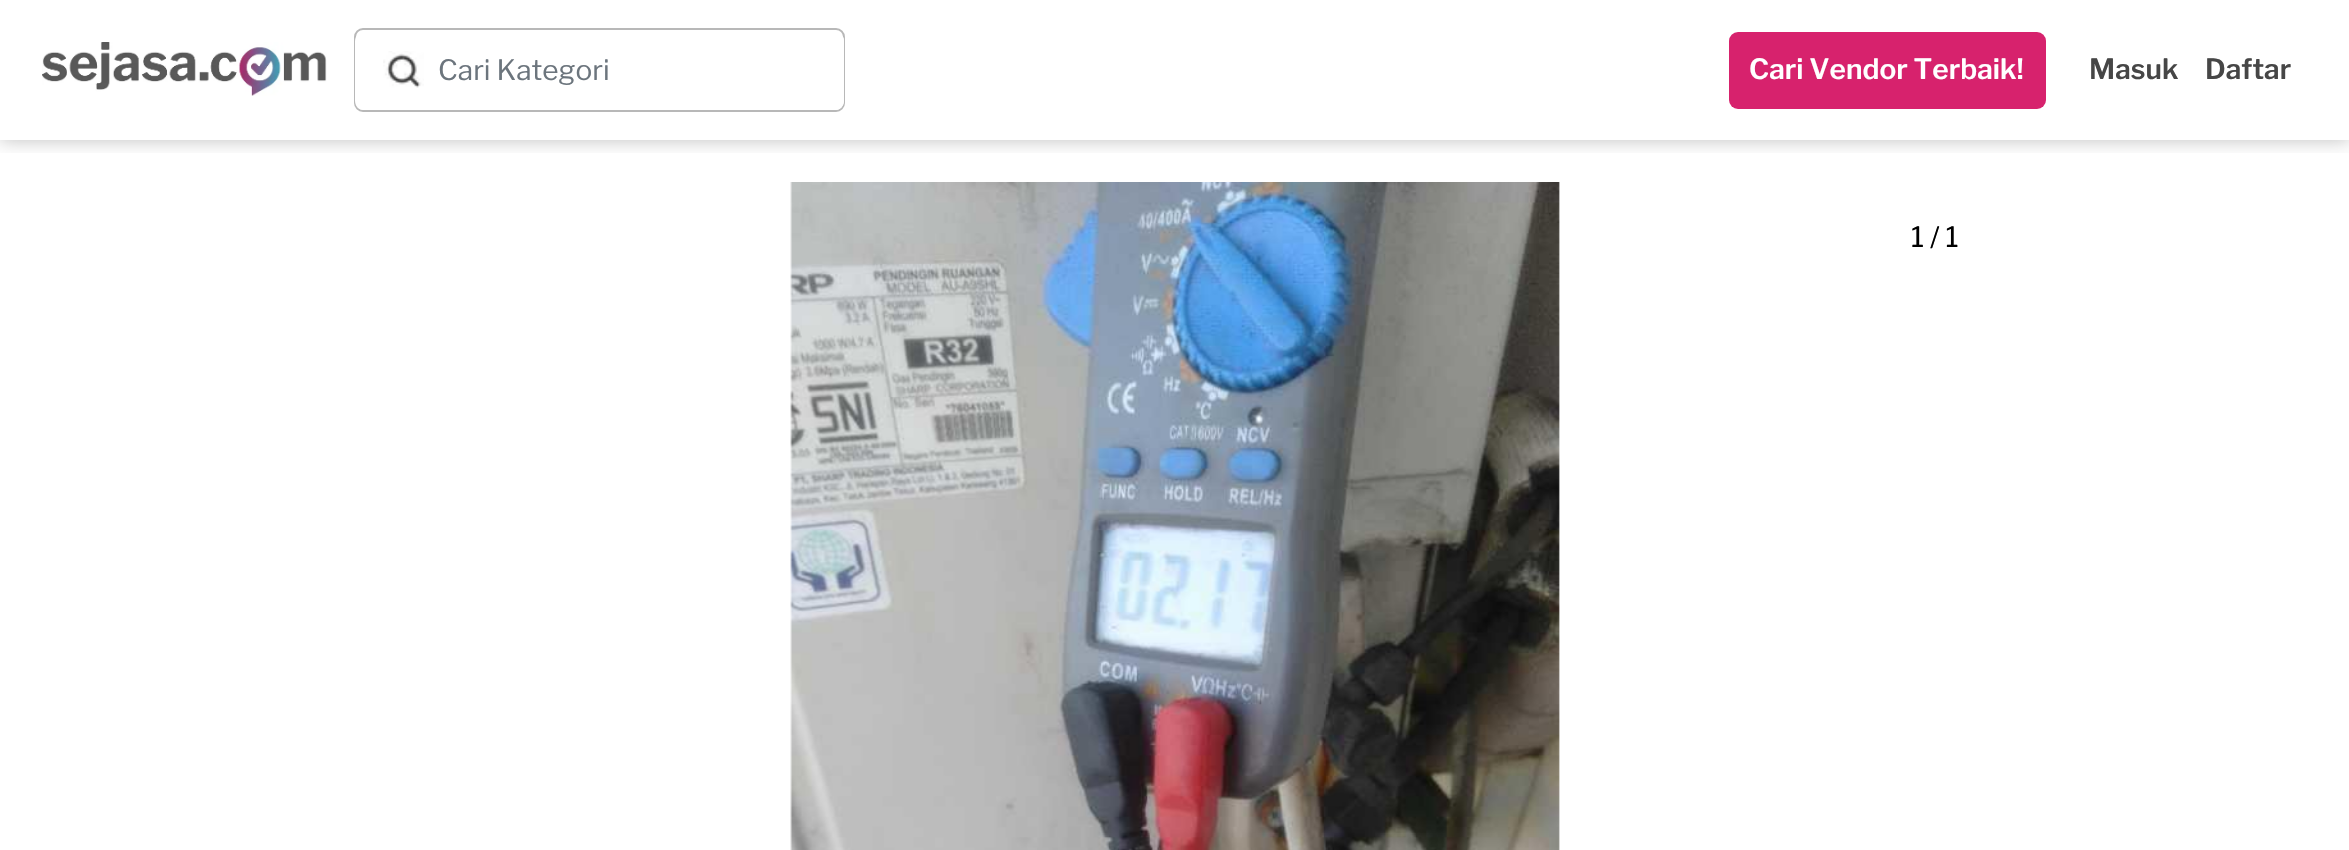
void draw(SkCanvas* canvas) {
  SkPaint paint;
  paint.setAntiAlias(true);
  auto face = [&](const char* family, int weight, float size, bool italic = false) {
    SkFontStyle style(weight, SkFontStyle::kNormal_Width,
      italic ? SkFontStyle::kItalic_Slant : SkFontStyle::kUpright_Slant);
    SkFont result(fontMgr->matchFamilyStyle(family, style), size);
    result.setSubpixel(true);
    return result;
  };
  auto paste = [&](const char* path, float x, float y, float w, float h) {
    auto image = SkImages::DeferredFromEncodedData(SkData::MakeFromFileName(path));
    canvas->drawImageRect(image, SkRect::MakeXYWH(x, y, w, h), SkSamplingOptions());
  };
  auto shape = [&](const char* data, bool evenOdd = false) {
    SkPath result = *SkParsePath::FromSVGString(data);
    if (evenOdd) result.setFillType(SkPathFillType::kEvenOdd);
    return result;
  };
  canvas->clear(0xffffffff);
  canvas->save();
  canvas->clipRect(SkRect::MakeXYWH(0, 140, 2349, 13));
  paint.setColor(0x40000000);
  paint.setMaskFilter(SkMaskFilter::MakeBlur(kNormal_SkBlurStyle, 9));
  canvas->drawRect(SkRect::MakeXYWH(0, 0, 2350, 140), paint);
  paint.setMaskFilter(nullptr);
  canvas->restore();
  paste("img/1.png", 42, 42, 285, 54);
  paint.setStroke(true);
  paint.setStrokeWidth(2);
  paint.setColor(0xffb8b8b8);
  canvas->drawRoundRect(SkRect::MakeXYWH(355, 29, 489, 82), 8, 8, paint);
  paint.setStroke(false);
  paint.setColor(0xffffffff);
  canvas->drawPath(shape("M364 32H425V110H364C359 110 355 106 355 101V41C355 36 359 32 364 32Z"), paint);
  paste("img/2.png", 383, 51, 41, 37);
  canvas->drawPath(shape("M431 32H835C840 32 844 36 844 41V101C844 106 840 110 835 110H431C427 110 424 107 424 103V39C424 35 427 32 431 32Z"), paint);
  canvas->drawRoundRect(SkRect::MakeXYWH(424, 32, 420, 78), 9, 9, paint);
  paint.setColor(0xffd7226d);
  canvas->drawRoundRect(SkRect::MakeXYWH(1729, 32, 317, 77), 9, 9, paint);
  paste("img/3.png", 790, 182, 770, 668);
  auto f0 = face("Libre Franklin", 400, 28);
  paint.setColor(0xff6c757d);
  canvas->drawString("Cari Kategori", 438, 80, f0, paint);
  auto f1 = face("Libre Franklin", 600, 28);
  paint.setColor(0xffffffff);
  canvas->drawString("Cari Vendor Terbaik!", 1749, 79, f1, paint);
  paint.setColor(0xff464646);
  canvas->drawString("Masuk", 2089, 79, f1, paint);
  canvas->drawString("Daftar", 2205, 79, f1, paint);
  paint.setColor(0xff000000);
  canvas->drawString("1 / 1", 1911, 247, f0, paint);
}
